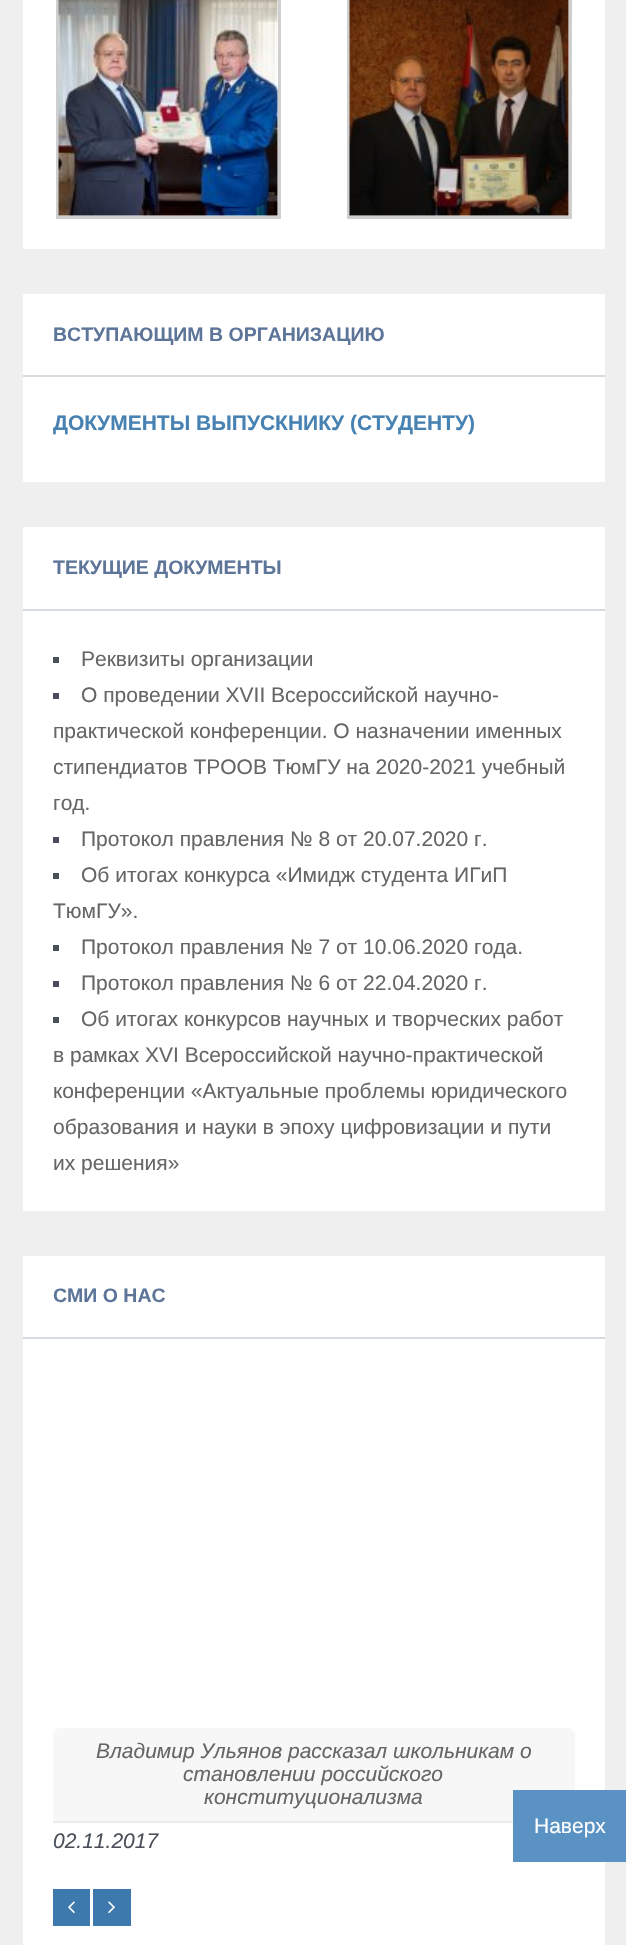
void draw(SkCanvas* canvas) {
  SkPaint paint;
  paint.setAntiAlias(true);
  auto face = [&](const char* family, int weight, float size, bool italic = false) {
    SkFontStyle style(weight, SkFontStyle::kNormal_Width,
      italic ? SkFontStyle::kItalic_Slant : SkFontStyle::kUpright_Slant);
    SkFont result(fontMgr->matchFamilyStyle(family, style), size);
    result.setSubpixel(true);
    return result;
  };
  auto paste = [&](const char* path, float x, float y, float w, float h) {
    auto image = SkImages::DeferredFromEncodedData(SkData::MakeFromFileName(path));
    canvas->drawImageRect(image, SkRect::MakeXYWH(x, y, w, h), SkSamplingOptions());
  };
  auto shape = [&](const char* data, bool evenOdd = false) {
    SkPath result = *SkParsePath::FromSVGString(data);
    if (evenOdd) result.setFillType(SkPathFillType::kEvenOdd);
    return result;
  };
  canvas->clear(0xffefefef);
  paint.setColor(0xffffffff);
  canvas->drawRect(SkRect::MakeXYWH(23, 0, 582, 249), paint);
  paint.setStroke(true);
  paint.setStrokeWidth(3);
  paint.setColor(0xffcfcfcf);
  canvas->drawRect(SkRect::MakeXYWH(57.5f, -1.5f, 222, 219), paint);
  paste("img/1.png", 58, 0, 220, 216);
  canvas->drawRect(SkRect::MakeXYWH(348.5f, -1.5f, 222, 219), paint);
  paste("img/2.png", 349, 0, 220, 216);
  paint.setStroke(false);
  {
    const struct { float x, y, w, h; SkColor color; } items[] = {
      {23, 294, 582, 188, 0xffffffff},
      {23, 375, 582, 2, 0xffd5dbe0},
      {23, 527, 582, 684, 0xffffffff},
      {23, 609, 582, 2, 0xffd5dbe0},
      {53, 657, 6, 6, 0xff4a5059},
      {53, 693, 6, 6, 0xff4a5059},
      {53, 837, 6, 6, 0xff4a5059},
      {53, 873, 6, 6, 0xff4a5059},
      {53, 945, 6, 6, 0xff4a5059},
      {53, 981, 6, 6, 0xff4a5059},
      {53, 1017, 6, 6, 0xff4a5059},
      {23, 1256, 582, 689, 0xffffffff},
      {23, 1337, 582, 2, 0xffd5dbe0},
    };
    for (auto [x, y, w, h, color] : items) {
      paint.setColor(color);
      canvas->drawRect(SkRect::MakeXYWH(x, y, w, h), paint);
    }
  }
  paint.setColor(0xfff7f7f7);
  canvas->drawPath(shape("M61 1728H567C571.5 1728 575 1731.5 575 1736V1823H53V1736C53 1731.5 56.5 1728 61 1728Z"), paint);
  paint.setColor(0xffebebeb);
  canvas->drawRect(SkRect::MakeXYWH(53, 1821, 460, 2), paint);
  paint.setColor(0xff3e79ad);
  canvas->drawRect(SkRect::MakeXYWH(53, 1889, 37, 37), paint);
  paste("img/3.png", 68, 1901, 7, 12);
  canvas->drawRect(SkRect::MakeXYWH(93, 1889, 38, 37), paint);
  paste("img/4.png", 108, 1901, 7, 12);
  paint.setColor(0xff5a92c4);
  canvas->drawRect(SkRect::MakeXYWH(513, 1790, 113, 72), paint);
  auto f0 = face("Liberation Sans", 700, 19.5f);
  paint.setColor(0xff5d7599);
  canvas->drawString("ВСТУПАЮЩИМ В ОРГАНИЗАЦИЮ", 53, 341, f0, paint);
  auto f1 = face("Liberation Sans", 700, 21);
  paint.setColor(0xff4782b2);
  canvas->drawString("ДОКУМЕНТЫ ВЫПУСКНИКУ (СТУДЕНТУ)", 53, 430, f1, paint);
  paint.setColor(0xff5d7599);
  canvas->drawString("ТЕКУЩИЕ ДОКУМЕНТЫ", 53, 574, f0, paint);
  auto f2 = face("Liberation Sans", 400, 21);
  paint.setColor(0xff666666);
  {
    const struct { const char* s; float x, y; } items[] = {
      {"Реквизиты организации", 81, 666},
      {"О проведении XVII Всероссийской научно-", 81, 702},
      {"практической конференции. О назначении именных", 53, 738},
      {"стипендиатов ТРООВ ТюмГУ на 2020-2021 учебный", 53, 774},
      {"год.", 53, 810},
      {"Протокол правления № 8 от 20.07.2020 г.", 81, 846},
      {"Об итогах конкурса «Имидж студента ИГиП", 81, 882},
      {"ТюмГУ».", 53, 918},
      {"Протокол правления № 7 от 10.06.2020 года.", 81, 954},
      {"Протокол правления № 6 от 22.04.2020 г.", 81, 990},
      {"Об итогах конкурсов научных и творческих работ", 81, 1026},
      {"в рамках XVI Всероссийской научно-практической", 53, 1062},
      {"конференции «Актуальные проблемы юридического", 53, 1098},
      {"образования и науки в эпоху цифровизации и пути", 53, 1134},
      {"их решения»", 53, 1170},
    };
    for (auto [s, x, y] : items) {
      canvas->drawString(s, x, y, f2, paint);
    }
  }
  paint.setColor(0xff5d7599);
  canvas->drawString("СМИ О НАС", 53, 1302, f0, paint);
  auto f3 = face("Liberation Sans", 400, 21, true);
  paint.setColor(0xff666666);
  {
    const struct { const char* s; float x, y; } items[] = {
      {"Владимир Ульянов рассказал школьникам о", 96, 1758},
      {"становлении российского", 183, 1781},
      {"конституционализма", 204, 1804},
    };
    for (auto [s, x, y] : items) {
      canvas->drawString(s, x, y, f3, paint);
    }
  }
  paint.setColor(0xff4a5059);
  canvas->drawString("02.11.2017", 53, 1848, f3, paint);
  paint.setColor(0xffffffff);
  canvas->drawString("Наверх", 534, 1833, f2, paint);
}
